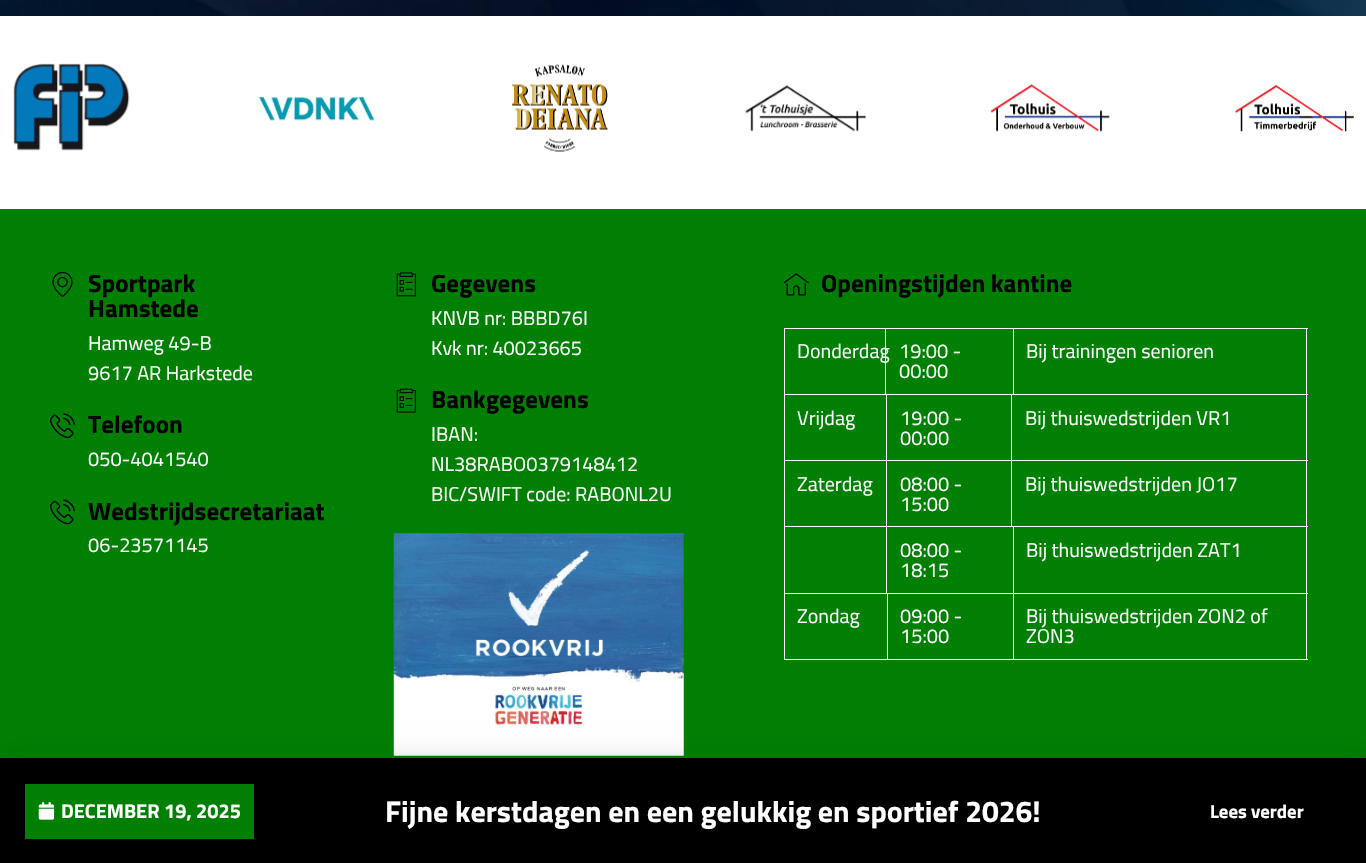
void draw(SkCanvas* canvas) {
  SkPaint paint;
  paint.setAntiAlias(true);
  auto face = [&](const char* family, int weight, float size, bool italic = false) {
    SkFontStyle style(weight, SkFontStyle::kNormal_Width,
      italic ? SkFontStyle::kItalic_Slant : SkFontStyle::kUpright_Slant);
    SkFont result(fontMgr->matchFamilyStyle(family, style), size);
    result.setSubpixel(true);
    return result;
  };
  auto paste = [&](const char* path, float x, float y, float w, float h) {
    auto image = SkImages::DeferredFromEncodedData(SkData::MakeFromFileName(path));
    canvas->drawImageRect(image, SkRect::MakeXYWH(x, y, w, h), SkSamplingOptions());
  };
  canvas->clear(0xffffffff);
  paste("img/1.png", 0, 0, 1366, 16);
  paste("img/2.png", 13, 63, 117, 88);
  paste("img/3.png", 257, 96, 120, 29);
  paste("img/4.png", 511, 64, 97, 88);
  paste("img/5.png", 745, 85, 121, 47);
  paste("img/6.png", 990, 84, 120, 48);
  paste("img/7.png", 1235, 85, 119, 47);
  paint.setColor(0xff008002);
  canvas->drawRect(SkRect::MakeXYWH(0, 209, 1366, 549), paint);
  paste("img/8.png", 52, 271, 21, 26);
  paste("img/9.png", 50, 413, 25, 26);
  paste("img/10.png", 50, 499, 25, 26);
  paste("img/11.png", 396, 272, 20, 25);
  paste("img/12.png", 396, 388, 20, 25);
  paste("img/13.png", 393, 533, 291, 223);
  paste("img/14.png", 783, 273, 26, 23);
  {
    const struct { float x, y, w, h; SkColor color; } items[] = {
      {784, 328, 524, 1, 0xffffffff},
      {885, 328, 1, 66, 0xffffffff},
      {784, 328, 1, 66, 0xffffffff},
      {1013, 328, 1, 66, 0xffffffff},
      {1306, 328, 1, 66, 0xffffffff},
      {784, 394, 524, 1, 0xffffffff},
      {886, 394, 1, 66, 0xffffffff},
      {784, 394, 1, 66, 0xffffffff},
      {1011, 394, 1, 66, 0xffffffff},
      {1306, 394, 1, 66, 0xffffffff},
      {784, 460, 524, 1, 0xffffffff},
      {886, 460, 1, 66, 0xffffffff},
      {784, 460, 1, 66, 0xffffffff},
      {1011, 460, 1, 66, 0xffffffff},
      {1306, 460, 1, 66, 0xffffffff},
      {784, 526, 524, 1, 0xffffffff},
      {886, 526, 1, 67, 0xffffffff},
      {784, 526, 1, 67, 0xffffffff},
      {1013, 526, 1, 67, 0xffffffff},
      {1306, 526, 1, 67, 0xffffffff},
    };
    for (auto [x, y, w, h, color] : items) {
      paint.setColor(color);
      canvas->drawRect(SkRect::MakeXYWH(x, y, w, h), paint);
    }
  }
  paint.setStroke(true);
  paint.setStrokeWidth(1);
  canvas->drawRect(SkRect::MakeXYWH(784.5f, 593.5f, 103, 66), paint);
  paint.setStroke(false);
  {
    const struct { float x, y, w, h; SkColor color; } items[] = {
      {888, 593, 420, 1, 0xffffffff},
      {1013, 593, 1, 67, 0xffffffff},
      {888, 659, 126, 1, 0xffffffff},
      {1306, 593, 1, 67, 0xffffffff},
      {1014, 659, 294, 1, 0xffffffff},
    };
    for (auto [x, y, w, h, color] : items) {
      paint.setColor(color);
      canvas->drawRect(SkRect::MakeXYWH(x, y, w, h), paint);
    }
  }
  paint.setColor(0x33000000);
  paint.setMaskFilter(SkMaskFilter::MakeBlur(kNormal_SkBlurStyle, 14.5f));
  canvas->drawRect(SkRect::MakeXYWH(-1, 764, 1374, 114), paint);
  paint.setMaskFilter(nullptr);
  paint.setColor(0xff000000);
  canvas->drawRect(SkRect::MakeXYWH(0, 758, 1366, 105), paint);
  paint.setColor(0xff008002);
  canvas->drawRect(SkRect::MakeXYWH(25, 784, 229, 55), paint);
  paste("img/15.png", 38, 802, 17, 18);
  auto f0 = face("Titillium Web", 700, 25);
  paint.setColor(0xff000000);
  canvas->drawString("Sportpark", 88, 292, f0, paint);
  canvas->drawString("Hamstede", 88, 317, f0, paint);
  auto f1 = face("Titillium Web", 400, 20);
  paint.setColor(0xffffffff);
  canvas->drawString("Hamweg 49-B", 88, 350, f1, paint);
  canvas->drawString("9617 AR Harkstede", 88, 380, f1, paint);
  paint.setColor(0xff000000);
  canvas->drawString("Telefoon", 88, 433, f0, paint);
  paint.setColor(0xffffffff);
  canvas->drawString("050-4041540", 88, 466, f1, paint);
  paint.setColor(0xff000000);
  canvas->drawString("Wedstrijdsecretariaat", 88, 520, f0, paint);
  paint.setColor(0xffffffff);
  canvas->drawString("06-23571145", 88, 552, f1, paint);
  paint.setColor(0xff000000);
  canvas->drawString("Gegevens", 431, 292, f0, paint);
  paint.setColor(0xffffffff);
  canvas->drawString("KNVB nr: BBBD76I", 431, 325, f1, paint);
  canvas->drawString("Kvk nr: 40023665", 431, 355, f1, paint);
  paint.setColor(0xff000000);
  canvas->drawString("Bankgegevens", 431, 408, f0, paint);
  paint.setColor(0xffffffff);
  {
    const struct { const char* s; float x, y; } items[] = {
      {"IBAN:", 431, 441},
      {"NL38RABO0379148412", 431, 471},
      {"BIC/SWIFT code: RABONL2U", 431, 501},
    };
    for (auto [s, x, y] : items) {
      canvas->drawString(s, x, y, f1, paint);
    }
  }
  paint.setColor(0xff000000);
  canvas->drawString("Openingstijden kantine", 821, 292, f0, paint);
  paint.setColor(0xffffffff);
  {
    const struct { const char* s; float x, y; } items[] = {
      {"Donderdag", 797, 358},
      {"19:00 -", 899, 358},
      {"00:00", 899, 378},
      {"Bij trainingen senioren", 1026, 358},
      {"Vrijdag", 797, 425},
      {"19:00 -", 900, 425},
      {"00:00", 900, 445},
      {"Bij thuiswedstrijden VR1", 1025, 425},
      {"Zaterdag", 797, 491},
      {"08:00 -", 900, 491},
      {"15:00", 900, 511},
      {"Bij thuiswedstrijden JO17", 1025, 491},
      {"08:00 -", 900, 557},
      {"18:15", 900, 577},
      {"Bij thuiswedstrijden ZAT1", 1026, 557},
      {"Zondag", 797, 623},
      {"09:00 -", 900, 623},
      {"15:00", 900, 643},
      {"Bij thuiswedstrijden ZON2 of", 1026, 623},
      {"ZON3", 1026, 643},
    };
    for (auto [s, x, y] : items) {
      canvas->drawString(s, x, y, f1, paint);
    }
  }
  auto f2 = face("Titillium Web", 700, 20);
  canvas->drawString("DECEMBER 19, 2025", 61, 818, f2, paint);
  auto f3 = face("Titillium Web", 700, 30);
  canvas->drawString("Fijne kerstdagen en een gelukkig en sportief 2026!", 385, 822, f3, paint);
  auto f4 = face("Titillium Web", 700, 18.75f);
  canvas->drawString("Lees verder", 1210, 818, f4, paint);
}
